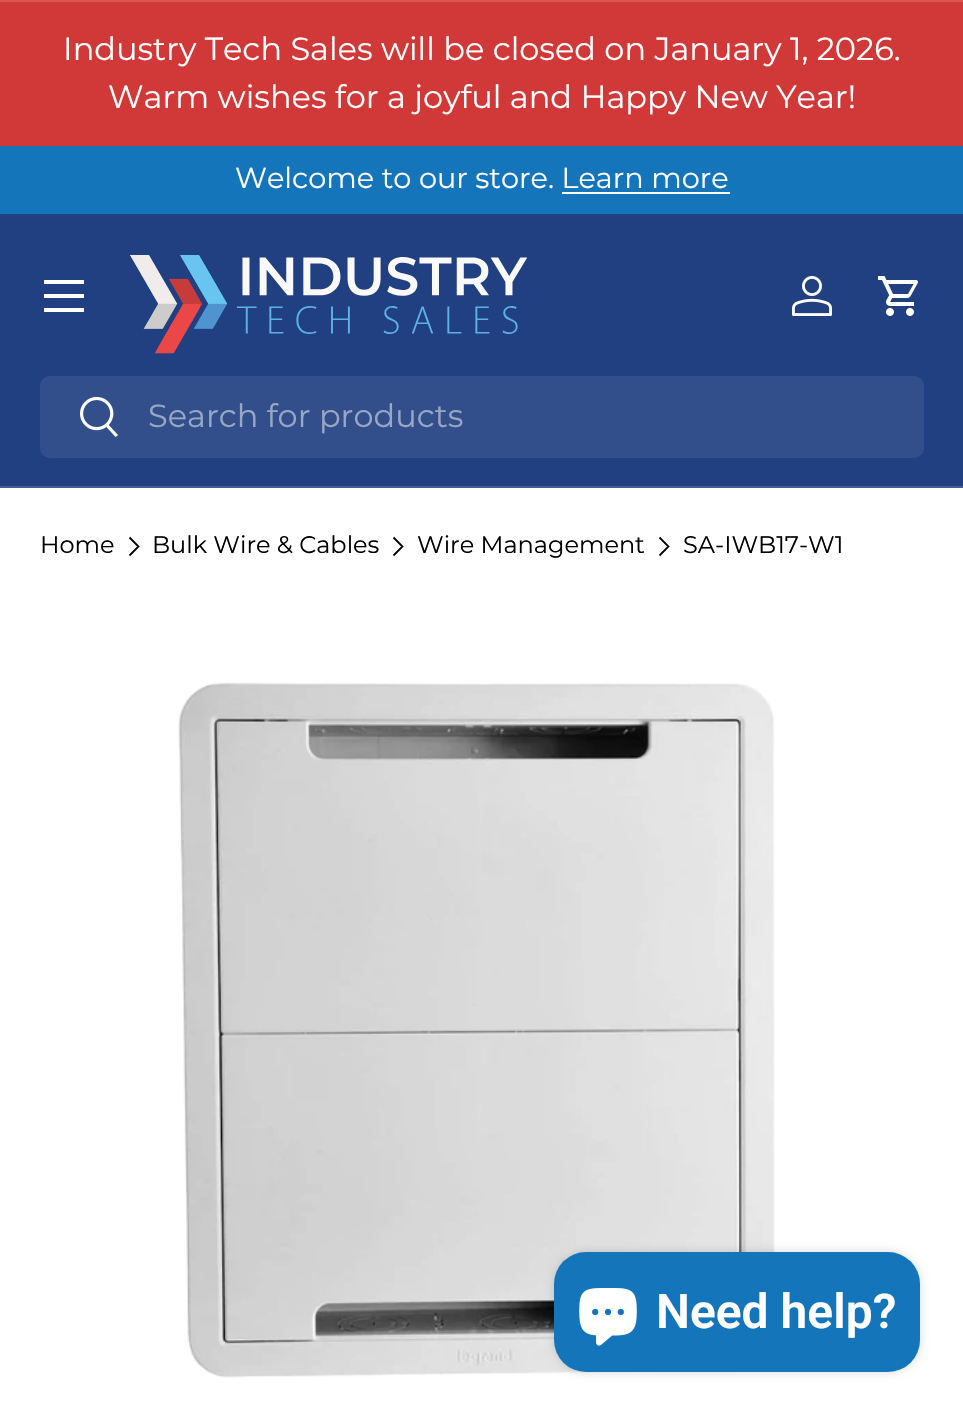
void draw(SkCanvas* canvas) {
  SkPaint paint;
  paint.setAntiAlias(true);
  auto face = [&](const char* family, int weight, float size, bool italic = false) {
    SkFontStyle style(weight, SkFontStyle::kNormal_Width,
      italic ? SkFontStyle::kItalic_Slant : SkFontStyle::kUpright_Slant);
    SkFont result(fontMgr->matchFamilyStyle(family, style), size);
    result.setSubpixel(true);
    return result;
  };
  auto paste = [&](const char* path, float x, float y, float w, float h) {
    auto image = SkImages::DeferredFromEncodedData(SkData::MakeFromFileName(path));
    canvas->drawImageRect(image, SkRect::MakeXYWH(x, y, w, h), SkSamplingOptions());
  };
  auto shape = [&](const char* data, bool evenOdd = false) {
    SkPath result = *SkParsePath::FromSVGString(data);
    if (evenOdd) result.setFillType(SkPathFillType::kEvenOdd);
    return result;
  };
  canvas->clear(0xffffffff);
  {
    const struct { float x, y, w, h; SkColor color; } items[] = {
      {0, 2, 963, 144, 0xffd13838},
      {0, 0, 963, 2, 0xffd85656},
      {0, 146, 963, 68, 0xff1575ba},
      {562, 192, 168, 2, 0xffffffff},
      {0, 214, 963, 272, 0xff214081},
      {0, 486, 963, 2, 0xff425d94},
      {44, 280, 40, 4, 0xffffffff},
      {44, 308, 40, 4, 0xffffffff},
      {44, 294, 40, 4, 0xffffffff},
    };
    for (auto [x, y, w, h, color] : items) {
      paint.setColor(color);
      canvas->drawRect(SkRect::MakeXYWH(x, y, w, h), paint);
    }
  }
  paste("img/1.png", 130, 255, 398, 99);
  paste("img/2.png", 792, 276, 40, 40);
  paste("img/3.png", 878, 276, 40, 40);
  paint.setColor(0xff334f8b);
  canvas->drawRoundRect(SkRect::MakeXYWH(40, 376, 884, 82), 10, 10, paint);
  paste("img/4.png", 80, 396, 38, 41);
  paint.setStroke(true);
  paint.setStrokeWidth(1.8f);
  paint.setColor(0xff000000);
  canvas->drawPath(shape("M129.5 537.5L138.5 546.5L129.5 555.5"), paint);
  canvas->drawPath(shape("M393.5 537.5L402.5 546.5L393.5 555.5"), paint);
  canvas->drawPath(shape("M659.5 537.5L668.5 546.5L659.5 555.5"), paint);
  paste("img/5.png", 178, 682, 597, 696);
  paint.setStroke(false);
  paint.setColor(0x26000000);
  paint.setMaskFilter(SkMaskFilter::MakeBlur(kNormal_SkBlurStyle, 5));
  canvas->drawRoundRect(SkRect::MakeXYWH(554, 1252, 366, 120), 32, 32, paint);
  paint.setMaskFilter(nullptr);
  paint.setColor(0xff1575ba);
  canvas->drawRoundRect(SkRect::MakeXYWH(554, 1252, 366, 120), 32, 32, paint);
  paste("img/6.png", 579, 1288, 58, 58);
  auto f0 = face("Montserrat", 400, 32);
  paint.setColor(0xffffffff);
  canvas->drawString("Industry Tech Sales will be closed on January 1, 2026.", 63, 60, f0, paint);
  canvas->drawString("Warm wishes for a joyful and Happy New Year!", 108, 108, f0, paint);
  auto f1 = face("Montserrat", 400, 28.75f);
  canvas->drawString("Welcome to our store. Learn more", 235, 188, f1, paint);
  paint.setColor(0xff99a7c5);
  canvas->drawString("Search for products", 148, 427, f0, paint);
  auto f2 = face("Montserrat", 400, 24);
  paint.setColor(0xff000000);
  {
    const struct { const char* s; float x, y; } items[] = {
      {"Home", 40, 553},
      {"Bulk Wire & Cables", 152, 553},
      {"Wire Management", 417, 553},
      {"SA-IWB17-W1", 683, 553},
    };
    for (auto [s, x, y] : items) {
      canvas->drawString(s, x, y, f2, paint);
    }
  }
  auto f3 = face("Roboto", 600, 48);
  paint.setColor(0xffffffff);
  canvas->drawString("Need help?", 656, 1328, f3, paint);
}
